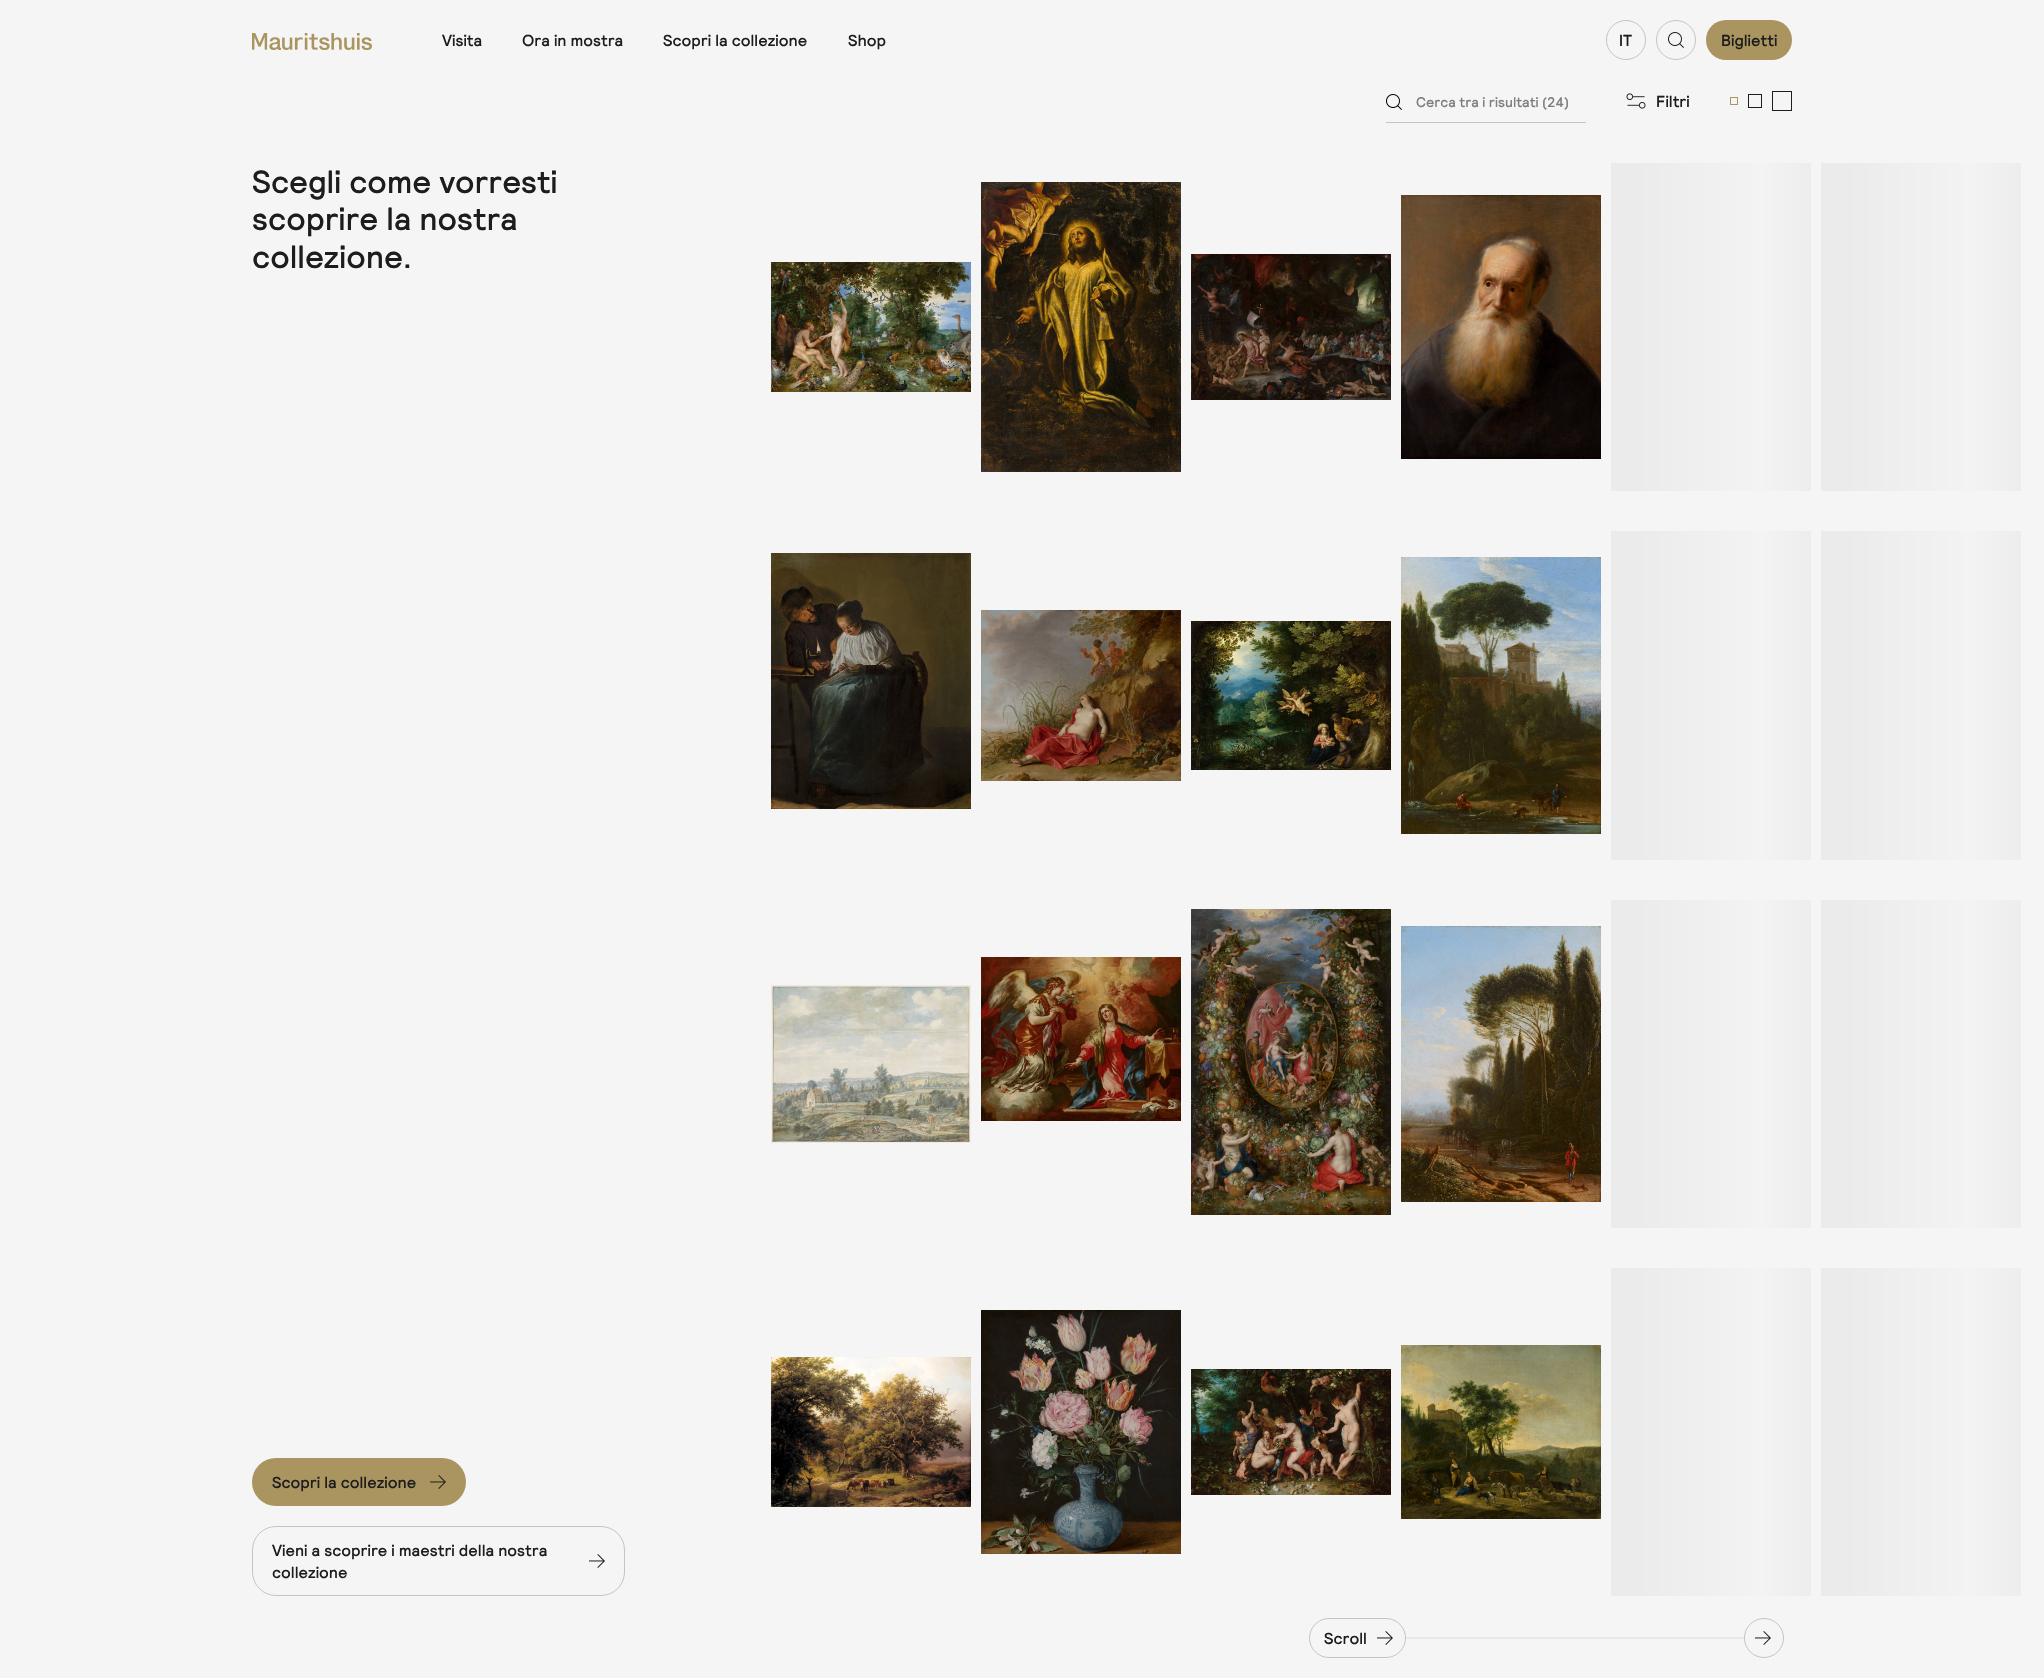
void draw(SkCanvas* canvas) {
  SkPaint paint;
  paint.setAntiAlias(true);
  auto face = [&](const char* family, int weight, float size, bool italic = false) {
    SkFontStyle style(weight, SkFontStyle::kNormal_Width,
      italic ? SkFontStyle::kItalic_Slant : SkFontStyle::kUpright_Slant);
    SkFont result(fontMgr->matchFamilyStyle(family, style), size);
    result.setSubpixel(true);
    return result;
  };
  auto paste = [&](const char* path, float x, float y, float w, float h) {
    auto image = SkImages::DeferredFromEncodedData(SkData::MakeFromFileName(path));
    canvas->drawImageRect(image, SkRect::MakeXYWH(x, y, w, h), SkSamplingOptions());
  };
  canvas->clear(0xfff5f5f5);
  paste("img/1.png", 252, 33, 120, 17);
  paint.setStroke(true);
  paint.setStrokeWidth(1);
  paint.setColor(0xffc4c4c4);
  canvas->drawCircle(1626, 40, 19.5f, paint);
  canvas->drawCircle(1676, 40, 19.5f, paint);
  paste("img/2.png", 1668, 32, 16, 16);
  paint.setStroke(false);
  paint.setColor(0xffaa945f);
  canvas->drawRoundRect(SkRect::MakeXYWH(1706, 20, 86, 40), 20, 20, paint);
  paste("img/3.png", 1386, 94, 16, 16);
  paint.setColor(0xffc4c4c4);
  canvas->drawRect(SkRect::MakeXYWH(1386, 122, 200, 1), paint);
  paste("img/4.png", 1626, 93, 20, 16);
  paint.setStroke(true);
  paint.setColor(0xffaa945f);
  canvas->drawRect(SkRect::MakeXYWH(1730.5f, 97.5f, 7, 7), paint);
  paint.setColor(0xff1d1d1d);
  canvas->drawRect(SkRect::MakeXYWH(1748.5f, 94.5f, 13, 13), paint);
  canvas->drawRect(SkRect::MakeXYWH(1772.5f, 91.5f, 19, 19), paint);
  paint.setStroke(false);
  paint.setColor(0xffaa945f);
  canvas->drawRoundRect(SkRect::MakeXYWH(252, 1458, 214, 48), 24, 24, paint);
  paste("img/5.png", 430, 1475, 16, 14);
  paint.setStroke(true);
  paint.setColor(0xffc4c4c4);
  canvas->drawRoundRect(SkRect::MakeXYWH(252.5f, 1526.5f, 372, 69), 23.5f, 23.5f, paint);
  paste("img/6.png", 589, 1554, 16, 14);
  paste("img/7.png", 771, 262, 200, 130);
  paste("img/8.png", 981, 182, 200, 290);
  paste("img/9.png", 1191, 254, 200, 146);
  paste("img/10.png", 1401, 195, 200, 264);
  paint.setStroke(false);
  {
    const SkColor colors[] = {0xffebebeb, 0xfff3f3f3, 0xffebebeb};
    const float stops[] = {0.04f, 0.25f, 0.36f};
    const SkPoint ends[] = {{1611, 327}, {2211, 327}};
    paint.setShader(SkGradientShader::MakeLinear(ends, colors, stops, 3, SkTileMode::kClamp));
    paint.setAlpha(255);
  }
  canvas->drawRect(SkRect::MakeXYWH(1611, 163, 200, 328), paint);
  {
    const SkColor colors[] = {0xffebebeb, 0xfff3f3f3, 0xffebebeb};
    const float stops[] = {0.04f, 0.25f, 0.36f};
    const SkPoint ends[] = {{1821, 327}, {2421, 327}};
    paint.setShader(SkGradientShader::MakeLinear(ends, colors, stops, 3, SkTileMode::kClamp));
    paint.setAlpha(255);
  }
  canvas->drawRect(SkRect::MakeXYWH(1821, 163, 200, 328), paint);
  paste("img/11.png", 771, 553, 200, 256);
  paste("img/12.png", 981, 610, 200, 171);
  paste("img/13.png", 1191, 621, 200, 149);
  paste("img/14.png", 1401, 557, 200, 277);
  {
    const SkColor colors[] = {0xffebebeb, 0xfff3f3f3, 0xffebebeb};
    const float stops[] = {0.04f, 0.25f, 0.36f};
    const SkPoint ends[] = {{1611, 696}, {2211, 696}};
    paint.setShader(SkGradientShader::MakeLinear(ends, colors, stops, 3, SkTileMode::kClamp));
    paint.setAlpha(255);
  }
  canvas->drawRect(SkRect::MakeXYWH(1611, 531, 200, 329), paint);
  {
    const SkColor colors[] = {0xffebebeb, 0xfff3f3f3, 0xffebebeb};
    const float stops[] = {0.04f, 0.25f, 0.36f};
    const SkPoint ends[] = {{1821, 696}, {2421, 696}};
    paint.setShader(SkGradientShader::MakeLinear(ends, colors, stops, 3, SkTileMode::kClamp));
    paint.setAlpha(255);
  }
  canvas->drawRect(SkRect::MakeXYWH(1821, 531, 200, 329), paint);
  paste("img/15.png", 771, 985, 200, 158);
  paste("img/16.png", 981, 957, 200, 164);
  paste("img/17.png", 1191, 909, 200, 306);
  paste("img/18.png", 1401, 926, 200, 276);
  {
    const SkColor colors[] = {0xffebebeb, 0xfff3f3f3, 0xffebebeb};
    const float stops[] = {0.04f, 0.25f, 0.36f};
    const SkPoint ends[] = {{1611, 1064}, {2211, 1064}};
    paint.setShader(SkGradientShader::MakeLinear(ends, colors, stops, 3, SkTileMode::kClamp));
    paint.setAlpha(255);
  }
  canvas->drawRect(SkRect::MakeXYWH(1611, 900, 200, 328), paint);
  {
    const SkColor colors[] = {0xffebebeb, 0xfff3f3f3, 0xffebebeb};
    const float stops[] = {0.04f, 0.25f, 0.36f};
    const SkPoint ends[] = {{1821, 1064}, {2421, 1064}};
    paint.setShader(SkGradientShader::MakeLinear(ends, colors, stops, 3, SkTileMode::kClamp));
    paint.setAlpha(255);
  }
  canvas->drawRect(SkRect::MakeXYWH(1821, 900, 200, 328), paint);
  paste("img/19.png", 771, 1357, 200, 150);
  paste("img/20.png", 981, 1310, 200, 244);
  paste("img/21.png", 1191, 1369, 200, 126);
  paste("img/22.png", 1401, 1345, 200, 174);
  {
    const SkColor colors[] = {0xffebebeb, 0xfff3f3f3, 0xffebebeb};
    const float stops[] = {0.04f, 0.25f, 0.36f};
    const SkPoint ends[] = {{1611, 1432}, {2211, 1432}};
    paint.setShader(SkGradientShader::MakeLinear(ends, colors, stops, 3, SkTileMode::kClamp));
    paint.setAlpha(255);
  }
  canvas->drawRect(SkRect::MakeXYWH(1611, 1268, 200, 328), paint);
  {
    const SkColor colors[] = {0xffebebeb, 0xfff3f3f3, 0xffebebeb};
    const float stops[] = {0.04f, 0.25f, 0.36f};
    const SkPoint ends[] = {{1821, 1432}, {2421, 1432}};
    paint.setShader(SkGradientShader::MakeLinear(ends, colors, stops, 3, SkTileMode::kClamp));
    paint.setAlpha(255);
  }
  canvas->drawRect(SkRect::MakeXYWH(1821, 1268, 200, 328), paint);
  paint.setStroke(true);
  paint.setShader(nullptr);
  paint.setColor(0xffc4c4c4);
  canvas->drawRoundRect(SkRect::MakeXYWH(1309.5f, 1618.5f, 96, 39), 19.5f, 19.5f, paint);
  paste("img/6.png", 1377, 1631, 16, 14);
  paint.setStroke(false);
  paint.setColor(0xffe9e9e9);
  canvas->drawRect(SkRect::MakeXYWH(1406, 1637, 338, 2), paint);
  paint.setStroke(true);
  paint.setColor(0xffc4c4c4);
  canvas->drawCircle(1764, 1638, 19.5f, paint);
  paste("img/6.png", 1755, 1631, 16, 14);
  auto f0 = face("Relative", 500, 16);
  paint.setStroke(false);
  paint.setColor(0xff1d1d1d);
  {
    const struct { const char* s; float x, y; } items[] = {
      {"Visita", 442, 46},
      {"Ora in mostra", 522, 46},
      {"Scopri la collezione", 663, 46},
      {"Shop", 848, 46},
      {"IT", 1619, 46},
      {"Biglietti", 1721, 46},
    };
    for (auto [s, x, y] : items) {
      canvas->drawString(s, x, y, f0, paint);
    }
  }
  auto f1 = face("Relative", 500, 14);
  paint.setColor(0xff7e7e7e);
  canvas->drawString("Cerca tra i risultati (24)", 1416, 107, f1, paint);
  paint.setColor(0xff1d1d1d);
  canvas->drawString("Filtri", 1656, 107, f0, paint);
  auto f2 = face("Relative", 500, 32);
  {
    const struct { const char* s; float x, y; } items[] = {
      {"Scegli come vorresti", 252, 193},
      {"scoprire la nostra", 252, 230},
      {"collezione.", 252, 268},
    };
    for (auto [s, x, y] : items) {
      canvas->drawString(s, x, y, f2, paint);
    }
  }
  {
    const struct { const char* s; float x, y; } items[] = {
      {"Scopri la collezione", 272, 1488},
      {"Vieni a scoprire i maestri della nostra", 272, 1556},
      {"collezione", 272, 1578},
      {"Scroll", 1324, 1644},
    };
    for (auto [s, x, y] : items) {
      canvas->drawString(s, x, y, f0, paint);
    }
  }
}
